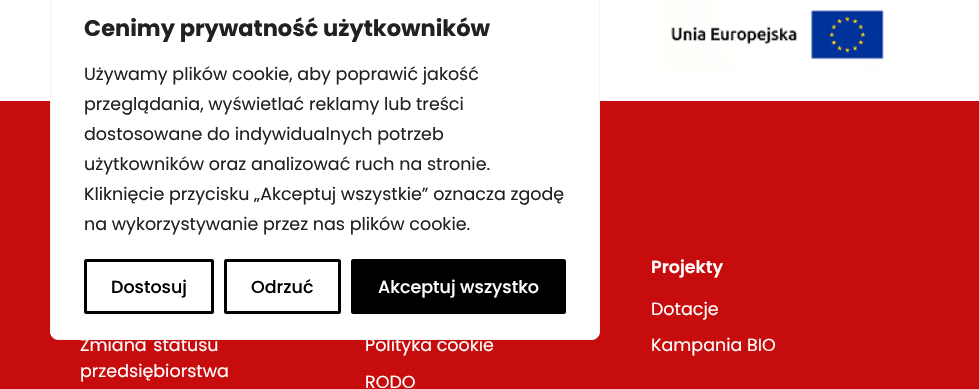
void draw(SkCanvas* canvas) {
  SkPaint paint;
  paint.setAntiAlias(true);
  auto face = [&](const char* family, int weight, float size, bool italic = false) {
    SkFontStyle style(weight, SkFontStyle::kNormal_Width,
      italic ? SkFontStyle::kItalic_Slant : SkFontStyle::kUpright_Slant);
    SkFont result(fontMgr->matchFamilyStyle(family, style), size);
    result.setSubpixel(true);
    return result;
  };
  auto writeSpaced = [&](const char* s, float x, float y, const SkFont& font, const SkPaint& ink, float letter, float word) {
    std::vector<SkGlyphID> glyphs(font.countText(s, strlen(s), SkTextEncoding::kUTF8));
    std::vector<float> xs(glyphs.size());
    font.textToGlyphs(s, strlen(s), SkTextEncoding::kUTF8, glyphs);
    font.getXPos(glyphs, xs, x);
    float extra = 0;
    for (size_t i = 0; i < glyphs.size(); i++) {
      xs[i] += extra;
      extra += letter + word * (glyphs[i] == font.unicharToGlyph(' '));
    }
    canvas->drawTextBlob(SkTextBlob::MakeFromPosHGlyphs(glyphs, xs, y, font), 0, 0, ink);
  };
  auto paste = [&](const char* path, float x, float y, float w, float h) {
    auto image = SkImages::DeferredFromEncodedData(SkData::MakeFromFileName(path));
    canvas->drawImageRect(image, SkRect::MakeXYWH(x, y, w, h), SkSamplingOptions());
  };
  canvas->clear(0xffc60c0c);
  paint.setColor(0xffffffff);
  canvas->drawRect(SkRect::MakeXYWH(0, 0, 979, 101), paint);
  canvas->drawRoundRect(SkRect::MakeXYWH(50.5f, -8.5f, 549, 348), 7.5f, 7.5f, paint);
  paint.setStroke(true);
  paint.setStrokeWidth(1);
  paint.setColor(0xfff4f4f4);
  canvas->drawRoundRect(SkRect::MakeXYWH(50.5f, -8.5f, 549, 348), 7.5f, 7.5f, paint);
  paint.setStrokeWidth(3);
  paint.setColor(0xff000000);
  canvas->drawRoundRect(SkRect::MakeXYWH(85.5f, 260.5f, 127, 52), 1, 1, paint);
  canvas->drawRoundRect(SkRect::MakeXYWH(225.5f, 260.5f, 114, 52), 1, 1, paint);
  paint.setStroke(false);
  canvas->drawRoundRect(SkRect::MakeXYWH(352.5f, 260.5f, 212, 52), 1, 1, paint);
  paint.setStroke(true);
  canvas->drawRoundRect(SkRect::MakeXYWH(352.5f, 260.5f, 212, 52), 1, 1, paint);
  paste("img/1.png", 600, 0, 284, 74);
  auto f0 = face("Poppins", 700, 22.5f);
  paint.setStroke(false);
  paint.setColor(0xff212121);
  canvas->drawString("Cenimy prywatność użytkowników", 84, 36, f0, paint);
  auto f1 = face("Poppins", 400, 17.5f);
  {
    const struct { const char* s; float x, y; } items[] = {
      {"Używamy plików cookie, aby poprawić jakość", 84, 80},
      {"przeglądania, wyświetlać reklamy lub treści", 84, 110},
      {"dostosowane do indywidualnych potrzeb", 84, 140},
      {"użytkowników oraz analizować ruch na stronie.", 84, 170},
      {"Kliknięcie przycisku „Akceptuj wszystkie” oznacza zgodę", 84, 200},
      {"na wykorzystywanie przez nas plików cookie.", 84, 230},
    };
    for (auto [s, x, y] : items) {
      canvas->drawString(s, x, y, f1, paint);
    }
  }
  auto f2 = face("Poppins", 500, 17.5f);
  paint.setColor(0xff000000);
  canvas->drawString("Dostosuj", 111, 293, f2, paint);
  canvas->drawString("Odrzuć", 251, 293, f2, paint);
  paint.setColor(0xffffffff);
  canvas->drawString("Akceptuj wszystko", 378, 293, f2, paint);
  writeSpaced("Zmiana statusu", 80, 351, f1, paint, 0, 2);
  {
    const struct { const char* s; float x, y; } items[] = {
      {"przedsiębiorstwa", 80, 377},
      {"Polityka cookie", 365, 351},
      {"RODO", 365, 388},
    };
    for (auto [s, x, y] : items) {
      canvas->drawString(s, x, y, f1, paint);
    }
  }
  auto f3 = face("Poppins", 600, 17.5f);
  canvas->drawString("Projekty", 651, 273, f3, paint);
  canvas->drawString("Dotacje", 651, 315, f1, paint);
  canvas->drawString("Kampania BIO", 651, 351, f1, paint);
}
